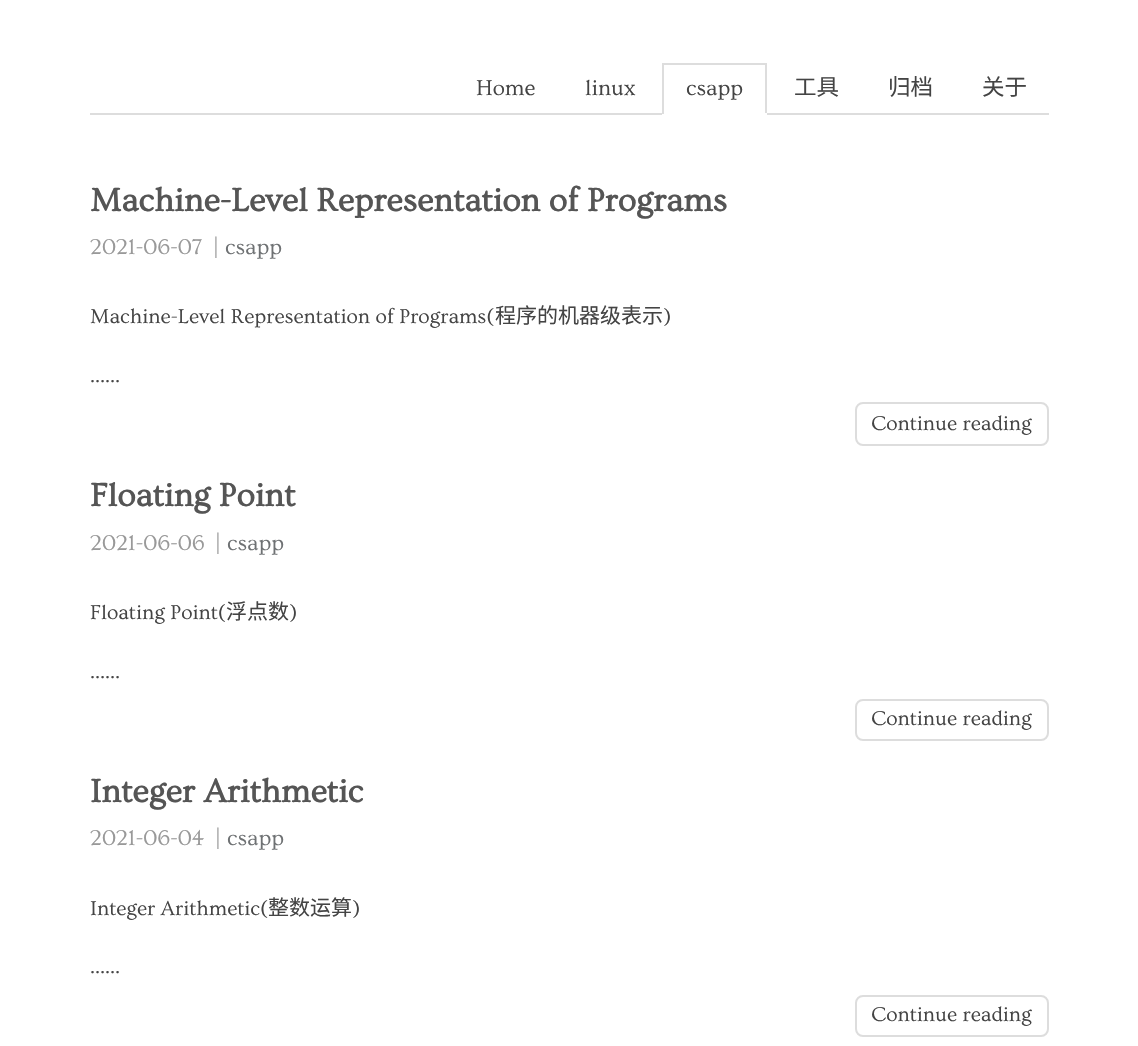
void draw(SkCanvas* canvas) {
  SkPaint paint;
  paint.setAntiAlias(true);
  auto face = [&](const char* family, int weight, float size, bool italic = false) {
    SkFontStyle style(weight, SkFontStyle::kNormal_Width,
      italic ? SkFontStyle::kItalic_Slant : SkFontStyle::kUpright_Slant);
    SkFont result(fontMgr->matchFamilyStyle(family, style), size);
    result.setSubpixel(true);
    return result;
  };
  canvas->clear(0xffffffff);
  {
    const struct { float x, y, w, h; SkColor color; } items[] = {
      {90, 113, 959, 2, 0xffdddddd},
      {662, 63, 105, 2, 0xffdddddd},
      {765, 63, 2, 51, 0xffdddddd},
      {662, 113, 105, 2, 0xffffffff},
      {662, 63, 2, 51, 0xffdddddd},
    };
    for (auto [x, y, w, h, color] : items) {
      paint.setColor(color);
      canvas->drawRect(SkRect::MakeXYWH(x, y, w, h), paint);
    }
  }
  paint.setStroke(true);
  paint.setStrokeWidth(2);
  canvas->drawRoundRect(SkRect::MakeXYWH(856, 403, 192, 42), 7, 7, paint);
  canvas->drawRoundRect(SkRect::MakeXYWH(856, 700, 192, 40), 7, 7, paint);
  canvas->drawRoundRect(SkRect::MakeXYWH(856, 996, 192, 40), 7, 7, paint);
  auto f0 = face("Ovo", 400, 22.5f);
  paint.setStroke(false);
  paint.setColor(0xff444444);
  {
    const struct { const char* s; float x, y; } items[] = {
      {"Home", 476, 95},
      {"linux", 585, 95},
      {"csapp", 686, 95},
    };
    for (auto [s, x, y] : items) {
      canvas->drawString(s, x, y, f0, paint);
    }
  }
  auto f1 = face("Noto Sans CJK SC", 400, 22.5f);
  {
    const struct { const char* s; float x, y; } items[] = {
      {"工具", 794, 95},
      {"归档", 888, 95},
      {"关于", 982, 95},
    };
    for (auto [s, x, y] : items) {
      canvas->drawString(s, x, y, f1, paint);
    }
  }
  auto f2 = face("Ovo", 700, 33.75f);
  paint.setColor(0xff555555);
  canvas->drawString("Machine-Level Representation of Programs", 90, 211, f2, paint);
  paint.setColor(0xff999999);
  canvas->drawString("2021-06-07", 90, 254, f0, paint);
  canvas->drawString("|", 213, 254, f0, paint);
  paint.setColor(0xff6e7173);
  canvas->drawString("csapp", 225, 254, f0, paint);
  auto f3 = face("Ovo", 400, 21);
  paint.setColor(0xff444444);
  canvas->drawString("Machine-Level Representation of Programs(", 90, 323, f3, paint);
  auto f4 = face("Noto Sans CJK SC", 400, 21);
  canvas->drawString("程序的机器级表示", 495, 323, f4, paint);
  {
    const struct { const char* s; float x, y; } items[] = {
      {")", 663, 323},
      {"……", 90, 382},
      {"Continue reading", 871, 430},
    };
    for (auto [s, x, y] : items) {
      canvas->drawString(s, x, y, f3, paint);
    }
  }
  paint.setColor(0xff555555);
  canvas->drawString("Floating Point", 90, 506, f2, paint);
  paint.setColor(0xff999999);
  canvas->drawString("2021-06-06", 90, 550, f0, paint);
  canvas->drawString("|", 215, 550, f0, paint);
  paint.setColor(0xff6e7173);
  canvas->drawString("csapp", 227, 550, f0, paint);
  paint.setColor(0xff444444);
  canvas->drawString("Floating Point(", 90, 619, f3, paint);
  canvas->drawString("浮点数", 226, 619, f4, paint);
  {
    const struct { const char* s; float x, y; } items[] = {
      {")", 289, 619},
      {"……", 90, 678},
      {"Continue reading", 871, 725},
    };
    for (auto [s, x, y] : items) {
      canvas->drawString(s, x, y, f3, paint);
    }
  }
  paint.setColor(0xff555555);
  canvas->drawString("Integer Arithmetic", 90, 802, f2, paint);
  paint.setColor(0xff999999);
  canvas->drawString("2021-06-04", 90, 845, f0, paint);
  canvas->drawString("|", 215, 845, f0, paint);
  paint.setColor(0xff6e7173);
  canvas->drawString("csapp", 227, 845, f0, paint);
  paint.setColor(0xff444444);
  canvas->drawString("Integer Arithmetic(", 90, 915, f3, paint);
  canvas->drawString("整数运算", 268, 915, f4, paint);
  {
    const struct { const char* s; float x, y; } items[] = {
      {")", 352, 915},
      {"……", 90, 973},
      {"Continue reading", 871, 1021},
    };
    for (auto [s, x, y] : items) {
      canvas->drawString(s, x, y, f3, paint);
    }
  }
}
